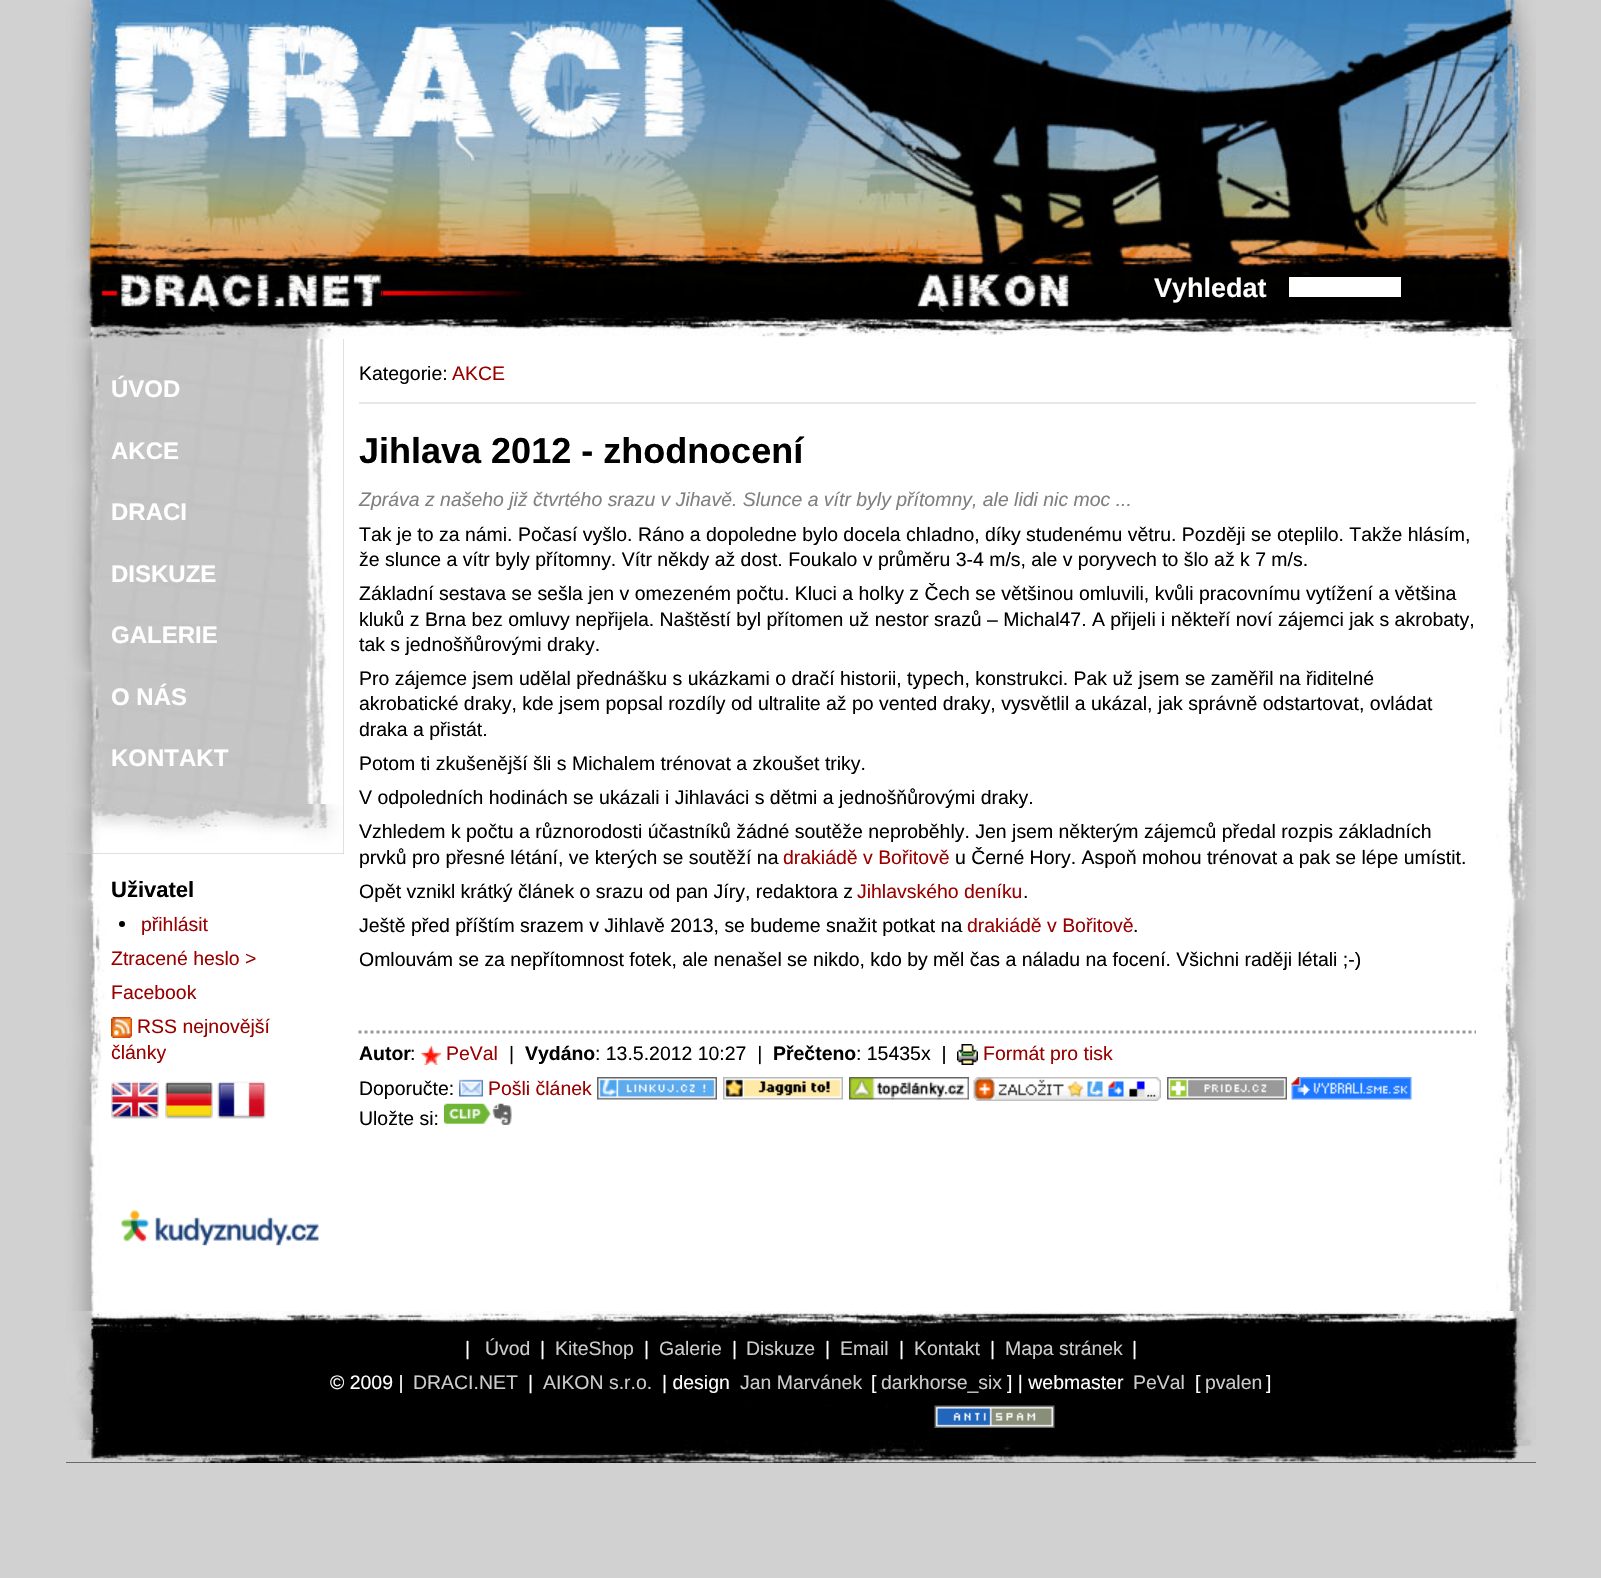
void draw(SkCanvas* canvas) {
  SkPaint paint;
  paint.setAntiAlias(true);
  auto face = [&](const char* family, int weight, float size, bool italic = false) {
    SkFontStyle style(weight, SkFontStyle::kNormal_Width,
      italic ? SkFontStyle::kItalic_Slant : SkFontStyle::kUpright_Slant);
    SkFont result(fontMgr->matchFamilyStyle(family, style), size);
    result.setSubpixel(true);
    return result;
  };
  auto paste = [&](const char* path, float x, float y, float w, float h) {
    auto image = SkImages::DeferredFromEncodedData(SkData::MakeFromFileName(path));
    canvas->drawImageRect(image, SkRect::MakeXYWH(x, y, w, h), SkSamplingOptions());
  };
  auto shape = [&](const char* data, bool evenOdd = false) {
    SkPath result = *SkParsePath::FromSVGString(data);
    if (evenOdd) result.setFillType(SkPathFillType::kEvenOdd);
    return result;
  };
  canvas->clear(0xffd1d1d1);
  paste("img/1.png", 66, 339, 1470, 972);
  paste("img/2.png", 66, 0, 1470, 270);
  paste("img/3.png", 66, 270, 1470, 42);
  paint.setColor(0xff000000);
  canvas->drawRect(SkRect::MakeXYWH(382, 282, 1, 30), paint);
  paste("img/4.png", 118, 270, 265, 42);
  paste("img/5.png", 914, 270, 155, 42);
  paint.setColor(0xffffffff);
  canvas->drawRect(SkRect::MakeXYWH(1288, 276, 114, 22), paint);
  paint.setStroke(true);
  paint.setStrokeWidth(2);
  paint.setColor(0xff000000);
  canvas->drawRect(SkRect::MakeXYWH(1288, 276, 114, 22), paint);
  paste("img/6.png", 66, 312, 1470, 27);
  paint.setStroke(false);
  {
    const struct { float x, y, w, h; SkColor color; } items[] = {
      {162, 312, 221, 5, 0xff000000},
      {914, 312, 160, 5, 0xff000000},
      {343, 339, 1, 465, 0xffc1c1c1},
    };
    for (auto [x, y, w, h, color] : items) {
      paint.setColor(color);
      canvas->drawRect(SkRect::MakeXYWH(x, y, w, h), paint);
    }
  }
  paste("img/7.png", 66, 339, 278, 465);
  paint.setColor(0xffe7e7e7);
  canvas->drawRect(SkRect::MakeXYWH(359, 402, 1117, 2), paint);
  paint.setStroke(true);
  paint.setStrokeWidth(3);
  paint.setColor(0xff999999);
  paint.setPathEffect(SkDashPathEffect::Make({{3, 3}}, 0));
  canvas->drawPath(shape("M358.5 1032H1476"), paint);
  paint.setPathEffect(nullptr);
  paste("img/8.png", 421, 1045, 20, 20);
  paste("img/9.png", 957, 1044, 21, 21);
  paste("img/10.png", 459, 1079, 24, 18);
  paste("img/11.png", 597, 1077, 120, 23);
  paste("img/12.png", 723, 1077, 120, 23);
  paste("img/13.png", 849, 1077, 120, 23);
  paste("img/14.png", 973, 1077, 188, 24);
  paste("img/15.png", 1167, 1077, 120, 23);
  paste("img/16.png", 1291, 1077, 121, 23);
  paste("img/17.png", 444, 1103, 68, 22);
  paint.setStroke(false);
  paint.setColor(0xffc1c1c1);
  canvas->drawRect(SkRect::MakeXYWH(66, 804, 278, 50), paint);
  paste("img/18.png", 66, 804, 278, 50);
  paint.setColor(0xff000000);
  canvas->drawCircle(122, 924, 3, paint);
  paste("img/19.png", 111, 1017, 21, 21);
  paste("img/20.png", 111, 1081, 48, 38);
  paste("img/21.png", 165, 1081, 48, 38);
  paste("img/22.png", 217, 1081, 49, 38);
  paste("img/23.png", 121, 1210, 198, 36);
  paste("img/24.png", 66, 1311, 1470, 21);
  paste("img/25.png", 66, 1332, 1470, 108);
  paste("img/26.png", 934, 1405, 121, 23);
  canvas->drawRect(SkRect::MakeXYWH(66, 1462, 1470, 1), paint);
  paste("img/27.png", 66, 1440, 1470, 23);
  auto f0 = face("Liberation Sans", 700, 27);
  paint.setColor(0xffffffff);
  canvas->drawString("Vyhledat", 1154, 297, f0, paint);
  auto f1 = face("Liberation Sans", 700, 24);
  {
    const struct { const char* s; float x, y; } items[] = {
      {"ÚVOD", 111, 397},
      {"AKCE", 111, 459},
      {"DRACI", 111, 520},
      {"DISKUZE", 111, 582},
      {"GALERIE", 111, 643},
      {"O NÁS", 111, 705},
      {"KONTAKT", 111, 766},
    };
    for (auto [s, x, y] : items) {
      canvas->drawString(s, x, y, f1, paint);
    }
  }
  auto f2 = face("Liberation Sans", 400, 19.45f);
  paint.setColor(0xff000000);
  canvas->drawString("Kategorie:", 359, 380, f2, paint);
  paint.setColor(0xff990000);
  canvas->drawString("AKCE", 452, 380, f2, paint);
  auto f3 = face("Liberation Sans", 700, 36);
  paint.setColor(0xff000000);
  canvas->drawString("Jihlava 2012 - zhodnocení", 359, 463, f3, paint);
  auto f4 = face("Liberation Sans", 400, 19.45f, true);
  paint.setColor(0xff808080);
  canvas->drawString("Zpráva z našeho již čtvrtého srazu v Jihavě. Slunce a vítr byly přítomny, ale lidi nic moc ...", 359, 506, f4, paint);
  paint.setColor(0xff000000);
  {
    const struct { const char* s; float x, y; } items[] = {
      {"Tak je to za námi. Počasí vyšlo. Ráno a dopoledne bylo docela chladno, díky studenému větru. Později se oteplilo. Takže hlásím,", 359, 541},
      {"že slunce a vítr byly přítomny. Vítr někdy až dost. Foukalo v průměru 3-4 m/s, ale v poryvech to šlo až k 7 m/s.", 359, 566},
      {"Základní sestava se sešla jen v omezeném počtu. Kluci a holky z Čech se většinou omluvili, kvůli pracovnímu vytížení a většina", 359, 600},
      {"kluků z Brna bez omluvy nepřijela. Naštěstí byl přítomen už nestor srazů – Michal47. A přijeli i někteří noví zájemci jak s akrobaty,", 359, 626},
      {"tak s jednošňůrovými draky.", 359, 651},
      {"Pro zájemce jsem udělal přednášku s ukázkami o dračí historii, typech, konstrukci. Pak už jsem se zaměřil na řiditelné", 359, 685},
      {"akrobatické draky, kde jsem popsal rozdíly od ultralite až po vented draky, vysvětlil a ukázal, jak správně odstartovat, ovládat", 359, 710},
      {"draka a přistát.", 359, 736},
      {"Potom ti zkušenější šli s Michalem trénovat a zkoušet triky.", 359, 770},
      {"V odpoledních hodinách se ukázali i Jihlaváci s dětmi a jednošňůrovými draky.", 359, 804},
      {"Vzhledem k počtu a různorodosti účastníků žádné soutěže neproběhly. Jen jsem některým zájemců předal rozpis základních", 359, 838},
      {"prvků pro přesné létání, ve kterých se soutěží na", 359, 864},
    };
    for (auto [s, x, y] : items) {
      canvas->drawString(s, x, y, f2, paint);
    }
  }
  paint.setColor(0xff990000);
  canvas->drawString("drakiádě v Bořitově", 783, 864, f2, paint);
  paint.setColor(0xff000000);
  canvas->drawString("u Černé Hory. Aspoň mohou trénovat a pak se lépe umístit.", 955, 864, f2, paint);
  canvas->drawString("Opět vznikl krátký článek o srazu od pan Jíry, redaktora z", 359, 898, f2, paint);
  paint.setColor(0xff990000);
  canvas->drawString("Jihlavského deníku", 857, 898, f2, paint);
  paint.setColor(0xff000000);
  canvas->drawString(".", 1023, 898, f2, paint);
  canvas->drawString("Ještě před příštím srazem v Jihlavě 2013, se budeme snažit potkat na", 359, 932, f2, paint);
  paint.setColor(0xff990000);
  canvas->drawString("drakiádě v Bořitově", 967, 932, f2, paint);
  paint.setColor(0xff000000);
  canvas->drawString(".", 1133, 932, f2, paint);
  canvas->drawString("Omlouvám se za nepřítomnost fotek, ale nenašel se nikdo, kdo by měl čas a náladu na focení. Všichni raději létali ;-)", 359, 966, f2, paint);
  auto f5 = face("Liberation Sans", 700, 19.45f);
  canvas->drawString("Autor", 359, 1060, f5, paint);
  canvas->drawString(":", 410, 1060, f2, paint);
  paint.setColor(0xff990000);
  canvas->drawString("PeVal", 446, 1060, f2, paint);
  paint.setColor(0xff000000);
  canvas->drawString("|", 509, 1060, f2, paint);
  canvas->drawString("Vydáno", 525, 1060, f5, paint);
  canvas->drawString(": 13.5.2012 10:27  |", 595, 1060, f2, paint);
  canvas->drawString("Přečteno", 773, 1060, f5, paint);
  canvas->drawString(": 15435x  |", 856, 1060, f2, paint);
  paint.setColor(0xff990000);
  canvas->drawString("Formát pro tisk", 983, 1060, f2, paint);
  paint.setColor(0xff000000);
  canvas->drawString("Doporučte:", 359, 1095, f2, paint);
  paint.setColor(0xff990000);
  canvas->drawString("Pošli článek", 488, 1095, f2, paint);
  paint.setColor(0xff000000);
  canvas->drawString("Uložte si:", 359, 1125, f2, paint);
  auto f6 = face("Liberation Sans", 700, 22);
  canvas->drawString("Uživatel", 111, 897, f6, paint);
  paint.setColor(0xff990000);
  {
    const struct { const char* s; float x, y; } items[] = {
      {"přihlásit", 141, 931},
      {"Ztracené heslo >", 111, 965},
      {"Facebook", 111, 999},
      {"RSS nejnovější", 137, 1033},
      {"články", 111, 1059},
    };
    for (auto [s, x, y] : items) {
      canvas->drawString(s, x, y, f2, paint);
    }
  }
  paint.setColor(0xffffffff);
  canvas->drawString("|", 465, 1355, f2, paint);
  paint.setColor(0xffcccccc);
  canvas->drawString("Úvod", 485, 1355, f2, paint);
  paint.setColor(0xffffffff);
  canvas->drawString("|", 540, 1355, f2, paint);
  paint.setColor(0xffcccccc);
  canvas->drawString("KiteShop", 555, 1355, f2, paint);
  paint.setColor(0xffffffff);
  canvas->drawString("|", 644, 1355, f2, paint);
  paint.setColor(0xffcccccc);
  canvas->drawString("Galerie", 659, 1355, f2, paint);
  paint.setColor(0xffffffff);
  canvas->drawString("|", 732, 1355, f2, paint);
  paint.setColor(0xffcccccc);
  canvas->drawString("Diskuze", 746, 1355, f2, paint);
  paint.setColor(0xffffffff);
  canvas->drawString("|", 825, 1355, f2, paint);
  paint.setColor(0xffcccccc);
  canvas->drawString("Email", 840, 1355, f2, paint);
  paint.setColor(0xffffffff);
  canvas->drawString("|", 899, 1355, f2, paint);
  paint.setColor(0xffcccccc);
  canvas->drawString("Kontakt", 914, 1355, f2, paint);
  paint.setColor(0xffffffff);
  canvas->drawString("|", 990, 1355, f2, paint);
  paint.setColor(0xffcccccc);
  canvas->drawString("Mapa stránek", 1005, 1355, f2, paint);
  paint.setColor(0xffffffff);
  canvas->drawString("|", 1132, 1355, f2, paint);
  canvas->drawString("© 2009 |", 330, 1389, f2, paint);
  paint.setColor(0xffcccccc);
  canvas->drawString("DRACI.NET", 413, 1389, f2, paint);
  paint.setColor(0xffffffff);
  canvas->drawString("|", 528, 1389, f2, paint);
  paint.setColor(0xffcccccc);
  canvas->drawString("AIKON s.r.o.", 543, 1389, f2, paint);
  paint.setColor(0xffffffff);
  canvas->drawString("| design", 662, 1389, f2, paint);
  paint.setColor(0xffcccccc);
  canvas->drawString("Jan Marvánek", 740, 1389, f2, paint);
  paint.setColor(0xffffffff);
  canvas->drawString("[", 871, 1389, f2, paint);
  paint.setColor(0xffcccccc);
  canvas->drawString("darkhorse_six", 881, 1389, f2, paint);
  paint.setColor(0xffffffff);
  canvas->drawString("] | webmaster", 1007, 1389, f2, paint);
  paint.setColor(0xffcccccc);
  canvas->drawString("PeVal", 1133, 1389, f2, paint);
  paint.setColor(0xffffffff);
  canvas->drawString("[", 1195, 1389, f2, paint);
  paint.setColor(0xffcccccc);
  canvas->drawString("pvalen", 1205, 1389, f2, paint);
  paint.setColor(0xffffffff);
  canvas->drawString("]", 1266, 1389, f2, paint);
}
